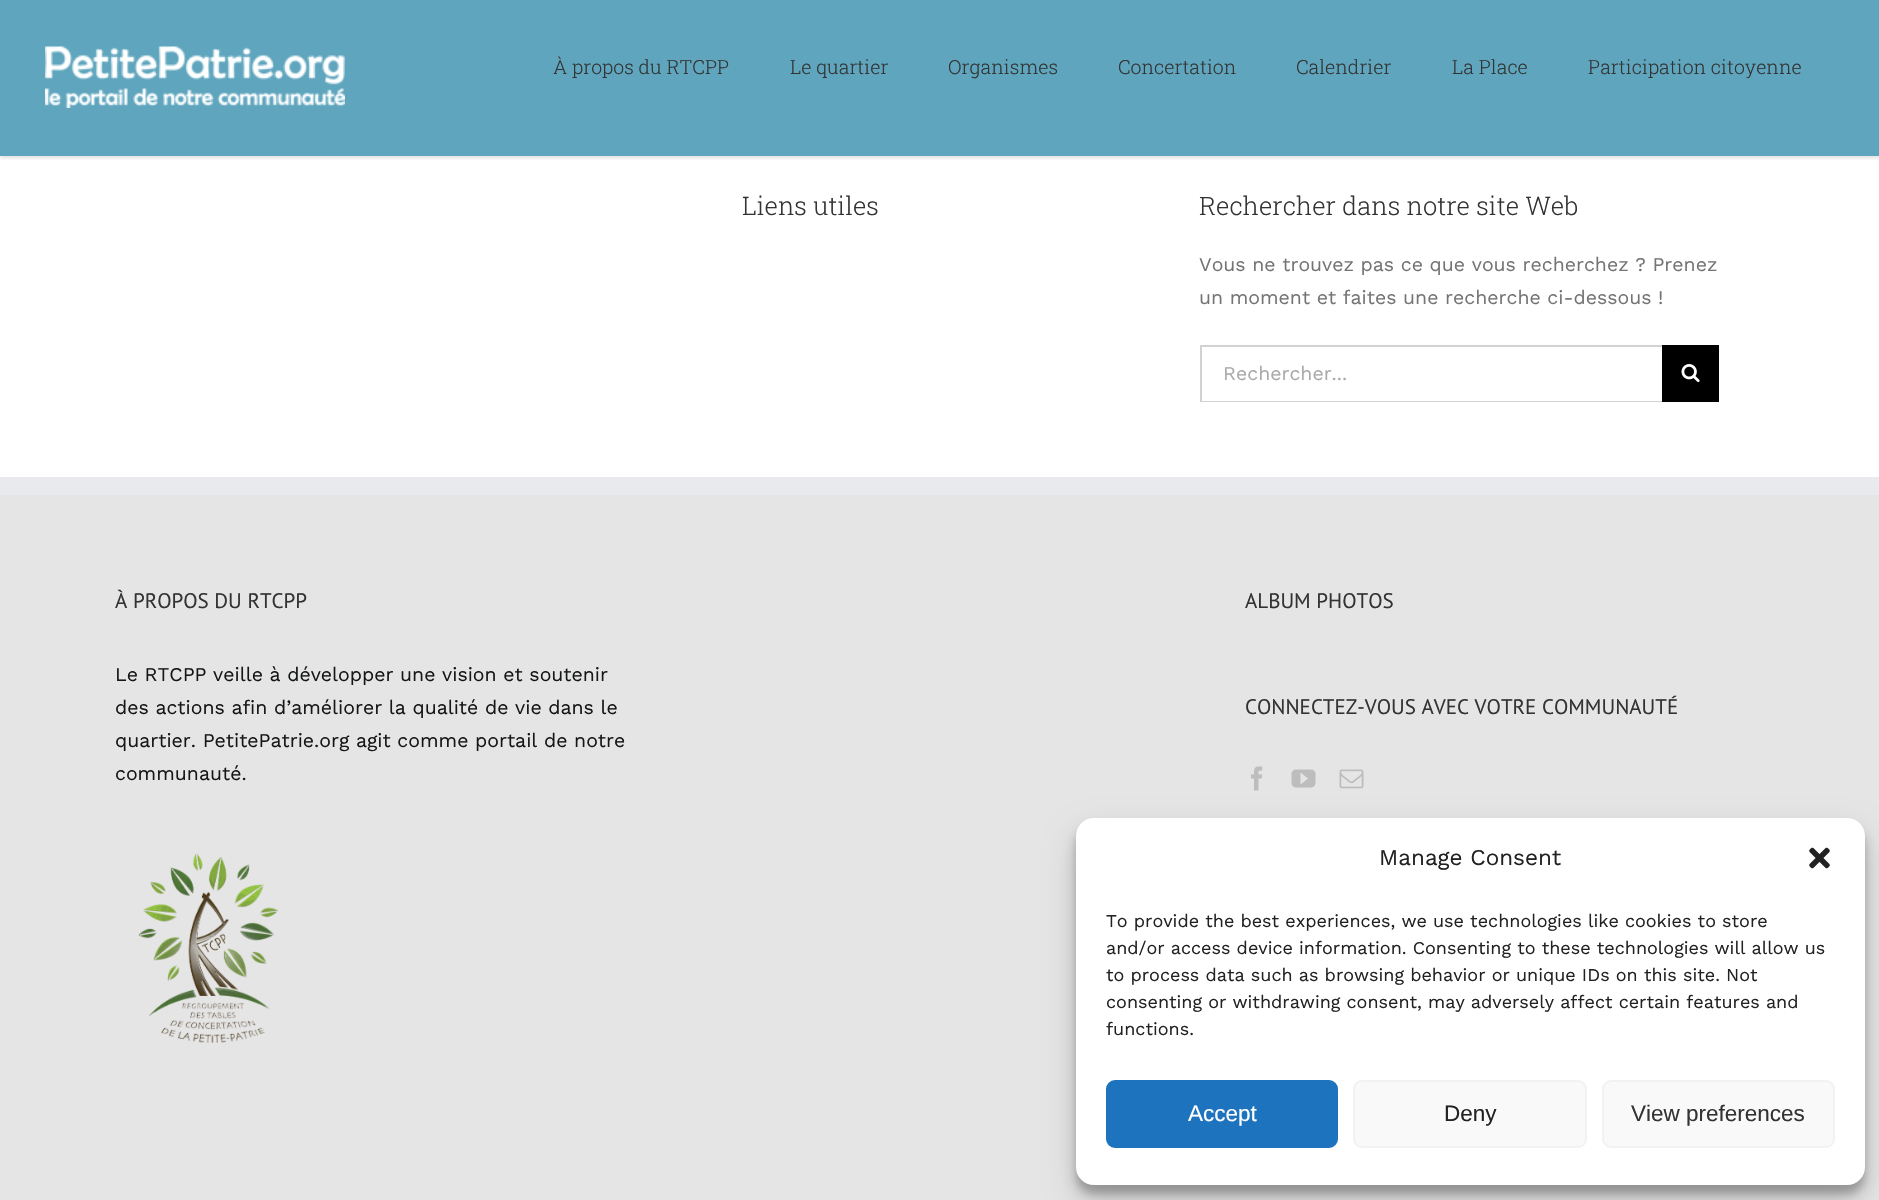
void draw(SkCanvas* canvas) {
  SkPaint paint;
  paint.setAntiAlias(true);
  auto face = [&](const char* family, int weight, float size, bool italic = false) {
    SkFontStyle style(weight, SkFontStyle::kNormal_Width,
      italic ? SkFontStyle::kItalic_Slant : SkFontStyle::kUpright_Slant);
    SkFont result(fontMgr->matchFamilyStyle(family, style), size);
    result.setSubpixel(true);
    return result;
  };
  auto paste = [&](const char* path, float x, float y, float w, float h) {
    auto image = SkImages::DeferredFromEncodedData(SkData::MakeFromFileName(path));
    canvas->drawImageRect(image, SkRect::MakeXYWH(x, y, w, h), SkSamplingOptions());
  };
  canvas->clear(0xffffffff);
  paint.setColor(0xff5ea5bd);
  canvas->drawRect(SkRect::MakeXYWH(0, 0, 1879, 156), paint);
  canvas->save();
  canvas->clipRect(SkRect::MakeXYWH(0, 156, 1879, 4));
  paint.setColor(0x1f000000);
  paint.setMaskFilter(SkMaskFilter::MakeBlur(kNormal_SkBlurStyle, 2));
  canvas->drawRect(SkRect::MakeXYWH(0, 2, 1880, 156), paint);
  paint.setMaskFilter(nullptr);
  canvas->restore();
  paste("img/1.png", 45, 46, 300, 62);
  {
    const struct { float x, y, w, h; SkColor color; } items[] = {
      {1200, 345, 462, 2, 0xffd2d2d2},
      {1200, 401, 462, 1, 0xffd2d2d2},
      {1200, 345, 2, 57, 0xffd2d2d2},
      {1662, 345, 57, 57, 0xff000000},
    };
    for (auto [x, y, w, h, color] : items) {
      paint.setColor(color);
      canvas->drawRect(SkRect::MakeXYWH(x, y, w, h), paint);
    }
  }
  paste("img/2.png", 1681, 364, 19, 19);
  paint.setColor(0xffe5e5e5);
  canvas->drawRect(SkRect::MakeXYWH(0, 495, 1879, 705), paint);
  paint.setColor(0xffe9eaee);
  canvas->drawRect(SkRect::MakeXYWH(0, 477, 1879, 18), paint);
  paste("img/3.png", 138, 853, 141, 190);
  paste("img/4.png", 1251, 766, 12, 25);
  paste("img/5.png", 1291, 769, 25, 19);
  paste("img/6.png", 1339, 769, 25, 20);
  paint.setColor(0x3b000000);
  paint.setMaskFilter(SkMaskFilter::MakeBlur(kNormal_SkBlurStyle, 4.5f));
  canvas->drawRoundRect(SkRect::MakeXYWH(1076, 827, 789, 367), 18, 18, paint);
  paint.setMaskFilter(nullptr);
  paint.setColor(0x30000000);
  paint.setMaskFilter(SkMaskFilter::MakeBlur(kNormal_SkBlurStyle, 15));
  canvas->drawRoundRect(SkRect::MakeXYWH(1076, 833, 789, 367), 18, 18, paint);
  paint.setMaskFilter(nullptr);
  paint.setColor(0xffffffff);
  canvas->drawRoundRect(SkRect::MakeXYWH(1076, 818, 789, 367), 18, 18, paint);
  paste("img/7.png", 1809, 847, 21, 22);
  paint.setColor(0xff1e73be);
  canvas->drawRoundRect(SkRect::MakeXYWH(1107, 1081, 230, 66), 8, 8, paint);
  paint.setStroke(true);
  paint.setStrokeWidth(2);
  canvas->drawRoundRect(SkRect::MakeXYWH(1107, 1081, 230, 66), 8, 8, paint);
  paint.setStroke(false);
  paint.setColor(0xfff9f9f9);
  canvas->drawRoundRect(SkRect::MakeXYWH(1354, 1081, 232, 66), 8, 8, paint);
  paint.setStroke(true);
  paint.setColor(0xfff2f2f2);
  canvas->drawRoundRect(SkRect::MakeXYWH(1354, 1081, 232, 66), 8, 8, paint);
  paint.setStroke(false);
  paint.setColor(0xfff9f9f9);
  canvas->drawRoundRect(SkRect::MakeXYWH(1603, 1081, 231, 66), 8, 8, paint);
  paint.setStroke(true);
  paint.setColor(0xfff2f2f2);
  canvas->drawRoundRect(SkRect::MakeXYWH(1603, 1081, 231, 66), 8, 8, paint);
  auto f0 = face("Roboto Slab", 300, 19.5f);
  paint.setStroke(false);
  paint.setColor(0xff333333);
  {
    const struct { const char* s; float x, y; } items[] = {
      {"À propos du RTCPP", 553, 74},
      {"Le quartier", 790, 74},
      {"Organismes", 948, 74},
      {"Concertation", 1118, 74},
      {"Calendrier", 1296, 74},
      {"La Place", 1452, 74},
      {"Participation citoyenne", 1588, 74},
    };
    for (auto [s, x, y] : items) {
      canvas->drawString(s, x, y, f0, paint);
    }
  }
  auto f1 = face("Roboto Slab", 300, 25.5f);
  canvas->drawString("Liens utiles", 742, 215, f1, paint);
  canvas->drawString("Rechercher dans notre site Web", 1199, 215, f1, paint);
  auto f2 = face("Work Sans", 400, 19.5f);
  paint.setColor(0xff747474);
  canvas->drawString("Vous ne trouvez pas ce que vous recherchez ? Prenez", 1199, 271, f2, paint);
  canvas->drawString("un moment et faites une recherche ci-dessous !", 1199, 304, f2, paint);
  paint.setColor(0xffaaa9a9);
  canvas->drawString("Rechercher...", 1223, 380, f2, paint);
  auto f3 = face("PT Sans", 400, 21);
  paint.setColor(0xff333333);
  canvas->drawString("À PROPOS DU RTCPP", 115, 608, f3, paint);
  paint.setColor(0xff151616);
  {
    const struct { const char* s; float x, y; } items[] = {
      {"Le RTCPP veille à développer une vision et soutenir", 115, 681},
      {"des actions afin d’améliorer la qualité de vie dans le", 115, 714},
      {"quartier. PetitePatrie.org agit comme portail de notre", 115, 747},
      {"communauté.", 115, 780},
    };
    for (auto [s, x, y] : items) {
      canvas->drawString(s, x, y, f2, paint);
    }
  }
  paint.setColor(0xff333333);
  canvas->drawString("ALBUM PHOTOS", 1245, 608, f3, paint);
  canvas->drawString("CONNECTEZ-VOUS AVEC VOTRE COMMUNAUTÉ", 1245, 714, f3, paint);
  auto f4 = face("Work Sans", 400, 22.5f);
  paint.setColor(0xff222222);
  canvas->drawString("Manage Consent", 1379, 865, f4, paint);
  auto f5 = face("Work Sans", 400, 18);
  {
    const struct { const char* s; float x, y; } items[] = {
      {"To provide the best experiences, we use technologies like cookies to store", 1106, 927},
      {"and/or access device information. Consenting to these technologies will allow us", 1106, 954},
      {"to process data such as browsing behavior or unique IDs on this site. Not", 1106, 981},
      {"consenting or withdrawing consent, may adversely affect certain features and", 1106, 1008},
      {"functions.", 1106, 1035},
    };
    for (auto [s, x, y] : items) {
      canvas->drawString(s, x, y, f5, paint);
    }
  }
  auto f6 = face("Liberation Sans", 400, 22.5f);
  paint.setColor(0xffffffff);
  canvas->drawString("Accept", 1188, 1121, f6, paint);
  paint.setColor(0xff222222);
  canvas->drawString("Deny", 1444, 1121, f6, paint);
  paint.setColor(0xff333333);
  canvas->drawString("View preferences", 1631, 1121, f6, paint);
}
